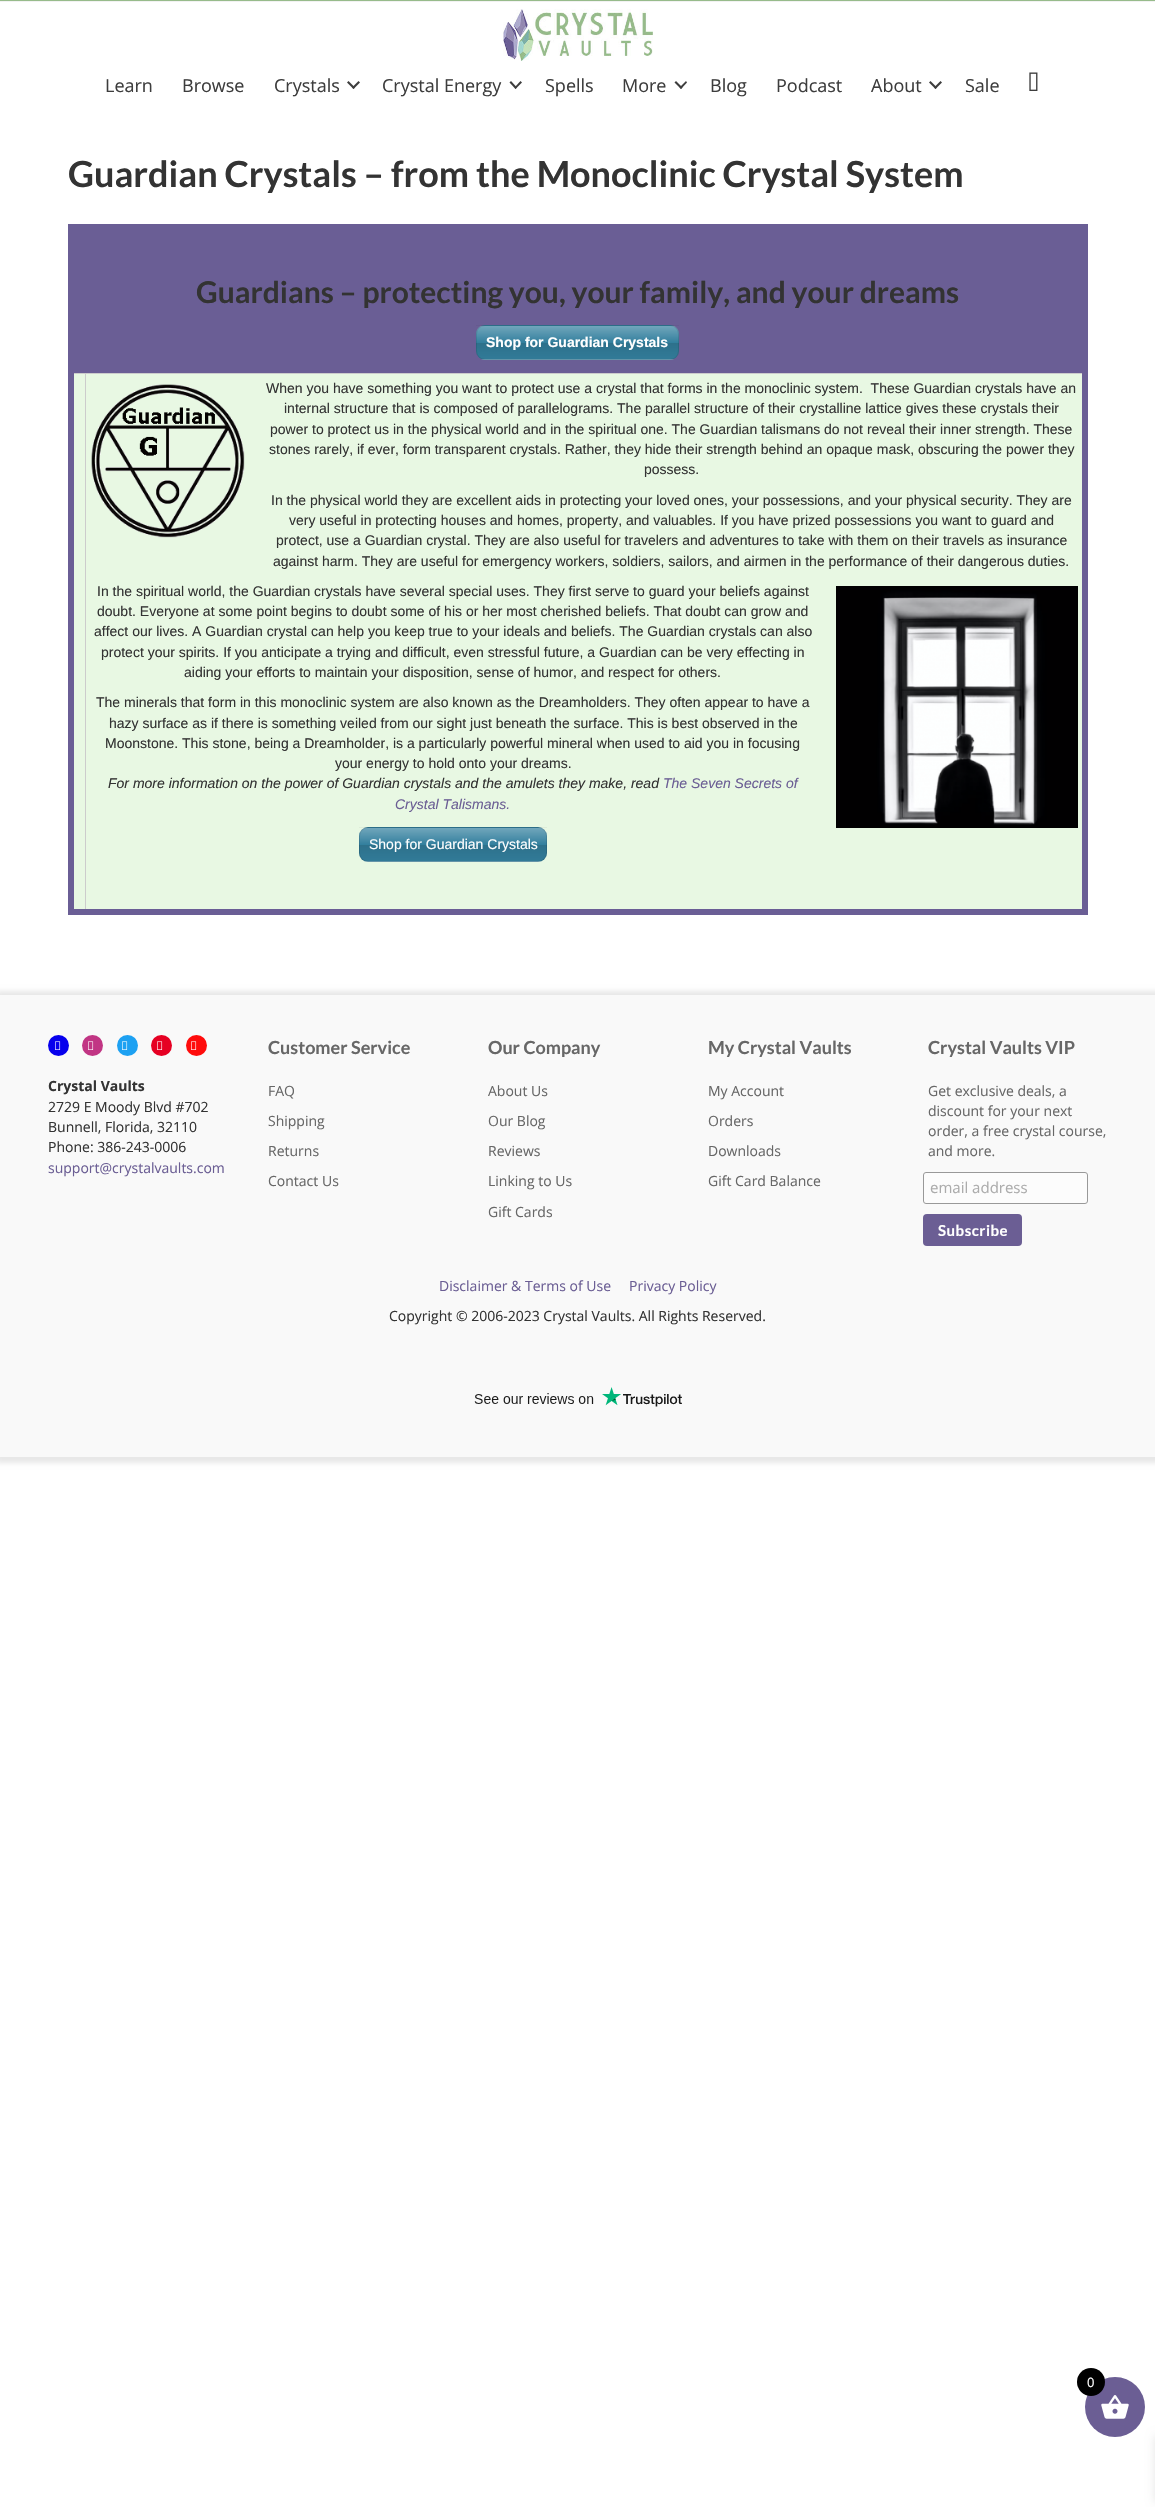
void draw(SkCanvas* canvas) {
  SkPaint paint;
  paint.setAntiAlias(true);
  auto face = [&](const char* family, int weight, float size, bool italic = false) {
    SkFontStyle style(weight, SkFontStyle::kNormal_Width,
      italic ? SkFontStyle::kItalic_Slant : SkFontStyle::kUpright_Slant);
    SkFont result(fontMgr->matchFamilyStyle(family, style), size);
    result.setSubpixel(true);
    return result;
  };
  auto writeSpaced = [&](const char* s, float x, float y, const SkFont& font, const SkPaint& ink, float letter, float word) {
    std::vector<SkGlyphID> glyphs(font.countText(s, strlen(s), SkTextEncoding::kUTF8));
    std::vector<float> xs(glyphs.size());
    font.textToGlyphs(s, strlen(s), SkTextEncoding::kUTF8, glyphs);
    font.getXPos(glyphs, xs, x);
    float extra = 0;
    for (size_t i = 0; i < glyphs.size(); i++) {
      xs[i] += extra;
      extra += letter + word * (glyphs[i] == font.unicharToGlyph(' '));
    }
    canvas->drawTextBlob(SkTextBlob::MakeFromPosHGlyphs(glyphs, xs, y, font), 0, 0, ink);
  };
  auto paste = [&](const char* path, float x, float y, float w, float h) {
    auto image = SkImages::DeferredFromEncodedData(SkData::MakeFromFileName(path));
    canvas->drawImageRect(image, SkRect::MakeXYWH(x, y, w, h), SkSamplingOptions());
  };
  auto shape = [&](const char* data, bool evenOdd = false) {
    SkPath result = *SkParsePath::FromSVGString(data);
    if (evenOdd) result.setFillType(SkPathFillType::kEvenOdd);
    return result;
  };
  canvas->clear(0xffffffff);
  paint.setColor(0xff97bb8b);
  canvas->drawRect(SkRect::MakeXYWH(0, 0, 1155, 1), paint);
  paint.setColor(0xfff2f2f2);
  canvas->drawRect(SkRect::MakeXYWH(0, 1, 1155, 1), paint);
  paste("img/1.png", 503, 9, 150, 52);
  paint.setColor(0xff3d3d3d);
  canvas->drawPath(shape("M358.5 81L360 82.5L353.5 89L352 87.5Z"), paint);
  canvas->drawPath(shape("M348.5 81L355 87.5L353.5 89L347 82.5Z"), paint);
  canvas->drawPath(shape("M520.5 81L522 82.5L515.5 89L514.5 87.5Z"), paint);
  canvas->drawPath(shape("M511 81L517 87.5L515.5 89L509.5 82.5Z"), paint);
  canvas->drawPath(shape("M686 81L687 82.5L681 89L679.5 87.5Z"), paint);
  canvas->drawPath(shape("M676 81L682.5 87.5L681 89L674.5 82.5Z"), paint);
  canvas->drawPath(shape("M940.5 81L942 82.5L935.5 89L934 87.5Z"), paint);
  canvas->drawPath(shape("M930.5 81L937 87.5L935.5 89L929 82.5Z"), paint);
  paste("img/2.png", 1029, 72, 9, 19);
  {
    const struct { float x, y, w, h; SkColor color; } items[] = {
      {74, 374, 1008, 535, 0xffe8f8e3},
      {68, 224, 1020, 6, 0xff6a5e95},
      {85, 373, 1000, 1, 0xffcccccc},
      {1082, 224, 6, 691, 0xff6a5e95},
      {85, 373, 1, 540, 0xffcccccc},
      {68, 909, 1020, 6, 0xff6a5e95},
      {70, 373, 16, 1, 0xffcccccc},
      {68, 224, 6, 691, 0xff6a5e95},
      {74, 230, 1008, 143, 0xff6a5e95},
    };
    for (auto [x, y, w, h, color] : items) {
      paint.setColor(color);
      canvas->drawRect(SkRect::MakeXYWH(x, y, w, h), paint);
    }
  }
  paint.setColor(0xff33809e);
  canvas->drawRoundRect(SkRect::MakeXYWH(476, 325, 203, 35), 9, 9, paint);
  {
    const SkColor colors[] = {0x4dffffff, 0x00ffffff, 0x00000000, 0x1f000000, 0x0a000000};
    const float stops[] = {0, 0.5f, 0.5f, 0.51f, 1};
    const SkPoint ends[] = {{578, 293}, {578, 326}};
    paint.setShader(SkGradientShader::MakeLinear(ends, colors, stops, 5, SkTileMode::kClamp));
    paint.setAlpha(255);
  }
  canvas->drawRect(SkRect::MakeXYWH(476, 325, 203, 1), paint);
  canvas->save();
  canvas->clipPath(shape("M485 325H670C675 325 679 329 679 334V351C679 356 675 360 670 360H485C480 360 476 356 476 351V334C476 329 480 325 485 325Z"), true);
  {
    const SkColor colors[] = {0x4dffffff, 0x00ffffff, 0x00000000, 0x1f000000, 0x0a000000};
    const float stops[] = {0, 0.5f, 0.5f, 0.51f, 1};
    const SkPoint ends[] = {{578, 326}, {578, 359}};
    paint.setShader(SkGradientShader::MakeLinear(ends, colors, stops, 5, SkTileMode::kClamp));
    paint.setAlpha(255);
  }
  canvas->drawRect(SkRect::MakeXYWH(476, 326, 203, 33), paint);
  {
    const SkColor colors[] = {0x4dffffff, 0x00ffffff, 0x00000000, 0x1f000000, 0x0a000000};
    const float stops[] = {0, 0.5f, 0.5f, 0.51f, 1};
    const SkPoint ends[] = {{578, 359}, {578, 392}};
    paint.setShader(SkGradientShader::MakeLinear(ends, colors, stops, 5, SkTileMode::kClamp));
    paint.setAlpha(255);
  }
  canvas->drawRect(SkRect::MakeXYWH(476, 359, 203, 1), paint);
  canvas->restore();
  paint.setStroke(true);
  paint.setStrokeWidth(1);
  paint.setShader(nullptr);
  paint.setColor(0x1a000000);
  canvas->drawRoundRect(SkRect::MakeXYWH(476.5f, 325.5f, 202, 34), 8.5f, 8.5f, paint);
  paste("img/3.png", 91, 384, 154, 154);
  paste("img/4.png", 836, 586, 242, 242);
  paint.setStroke(false);
  paint.setColor(0xff33809e);
  canvas->drawRoundRect(SkRect::MakeXYWH(359, 827, 188, 35), 9, 9, paint);
  {
    const SkColor colors[] = {0x4dffffff, 0x00ffffff, 0x00000000, 0x1f000000, 0x0a000000};
    const float stops[] = {0, 0.5f, 0.5f, 0.51f, 1};
    const SkPoint ends[] = {{453, 795}, {453, 828}};
    paint.setShader(SkGradientShader::MakeLinear(ends, colors, stops, 5, SkTileMode::kClamp));
    paint.setAlpha(255);
  }
  canvas->drawRect(SkRect::MakeXYWH(359, 827, 188, 1), paint);
  canvas->save();
  canvas->clipPath(shape("M368 827H538C543 827 547 831 547 836V853C547 858 543 862 538 862H368C363 862 359 858 359 853V836C359 831 363 827 368 827Z"), true);
  {
    const SkColor colors[] = {0x4dffffff, 0x00ffffff, 0x00000000, 0x1f000000, 0x0a000000};
    const float stops[] = {0, 0.5f, 0.5f, 0.51f, 1};
    const SkPoint ends[] = {{453, 828}, {453, 861}};
    paint.setShader(SkGradientShader::MakeLinear(ends, colors, stops, 5, SkTileMode::kClamp));
    paint.setAlpha(255);
  }
  canvas->drawRect(SkRect::MakeXYWH(359, 828, 188, 33), paint);
  {
    const SkColor colors[] = {0x4dffffff, 0x00ffffff, 0x00000000, 0x1f000000, 0x0a000000};
    const float stops[] = {0, 0.5f, 0.5f, 0.51f, 1};
    const SkPoint ends[] = {{453, 861}, {453, 894}};
    paint.setShader(SkGradientShader::MakeLinear(ends, colors, stops, 5, SkTileMode::kClamp));
    paint.setAlpha(255);
  }
  canvas->drawRect(SkRect::MakeXYWH(359, 861, 188, 1), paint);
  canvas->restore();
  paint.setStroke(true);
  paint.setShader(nullptr);
  paint.setColor(0x1a000000);
  canvas->drawRoundRect(SkRect::MakeXYWH(359.5f, 827.5f, 187, 34), 8.5f, 8.5f, paint);
  paint.setStroke(false);
  paint.setColor(0x17000000);
  paint.setMaskFilter(SkMaskFilter::MakeBlur(kNormal_SkBlurStyle, 2.5f));
  canvas->drawRect(SkRect::MakeXYWH(-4, 991, 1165, 472), paint);
  paint.setMaskFilter(nullptr);
  paint.setColor(0xfff9f9f9);
  canvas->drawRect(SkRect::MakeXYWH(0, 995, 1155, 462), paint);
  paint.setColor(0xff0700ed);
  canvas->drawCircle(58.5f, 1045.5f, 10.5f, paint);
  paste("img/5.png", 55, 1041, 6, 9);
  paint.setColor(0xffc13584);
  canvas->drawCircle(92.5f, 1045.5f, 10.5f, paint);
  paste("img/6.png", 88, 1041, 6, 9);
  paint.setColor(0xff1da1f2);
  canvas->drawCircle(127.5f, 1045.5f, 10.5f, paint);
  paste("img/7.png", 122, 1041, 6, 9);
  paint.setColor(0xffe60023);
  canvas->drawCircle(161.5f, 1045.5f, 10.5f, paint);
  paste("img/8.png", 157, 1041, 6, 9);
  paint.setColor(0xffff0c0c);
  canvas->drawCircle(196.5f, 1045.5f, 10.5f, paint);
  paste("img/9.png", 191, 1041, 6, 9);
  paint.setColor(0xfffcfcfc);
  canvas->drawRoundRect(SkRect::MakeXYWH(923.5f, 1172.5f, 164, 31), 2.5f, 2.5f, paint);
  paint.setStroke(true);
  paint.setColor(0xff999999);
  canvas->drawRoundRect(SkRect::MakeXYWH(923.5f, 1172.5f, 164, 31), 2.5f, 2.5f, paint);
  paint.setStroke(false);
  paint.setColor(0xff6b5e94);
  canvas->drawRoundRect(SkRect::MakeXYWH(923, 1214, 99, 32), 4, 4, paint);
  paste("img/10.png", 474, 1387, 208, 20);
  paint.setColor(0x1a000000);
  paint.setMaskFilter(SkMaskFilter::MakeBlur(kNormal_SkBlurStyle, 5));
  canvas->drawRect(SkRect::MakeXYWH(1155, 2436, 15, 66), paint);
  paint.setMaskFilter(nullptr);
  paint.setColor(0xff6b5e94);
  canvas->drawCircle(1115, 2407, 30, paint);
  paste("img/11.png", 1101, 2395, 28, 24);
  paint.setColor(0xff000000);
  canvas->drawCircle(1091, 2382, 14, paint);
  auto f0 = face("Open Sans", 400, 18);
  paint.setColor(0xff3d3d3d);
  {
    const struct { const char* s; float x, y; } items[] = {
      {"Learn", 105, 92},
      {"Browse", 182, 92},
      {"Crystals", 274, 92},
      {"Crystal Energy", 382, 92},
      {"Spells", 545, 92},
      {"More", 622, 92},
      {"Blog", 710, 92},
      {"Podcast", 776, 92},
      {"About", 871, 92},
      {"Sale", 965, 92},
    };
    for (auto [s, x, y] : items) {
      canvas->drawString(s, x, y, f0, paint);
    }
  }
  auto f1 = face("Lato", 700, 36);
  paint.setColor(0xff333333);
  canvas->drawString("Guardian Crystals – from the Monoclinic Crystal System", 68, 187, f1, paint);
  auto f2 = face("Lato", 700, 30);
  canvas->drawString("Guardians – protecting you, your family, and your dreams", 196, 303, f2, paint);
  auto f3 = face("Liberation Sans", 700, 14);
  paint.setColor(0xffffffff);
  canvas->drawString("Shop for Guardian Crystals", 486, 347, f3, paint);
  auto f4 = face("Liberation Sans", 400, 14);
  paint.setColor(0xff333333);
  {
    const struct { const char* s; float x, y; } items[] = {
      {"When you have something you want to protect use a crystal that forms in the monoclinic system.  These Guardian crystals have an", 266, 393},
      {"internal structure that is composed of parallelograms. The parallel structure of their crystalline lattice gives these crystals their", 284, 413},
      {"power to protect us in the physical world and in the spiritual one. The Guardian talismans do not reveal their inner strength. These", 270, 434},
      {"stones rarely, if ever, form transparent crystals. Rather, they hide their strength behind an opaque mask, obscuring the power they", 269, 454},
      {"possess.", 644, 474},
      {"In the physical world they are excellent aids in protecting your loved ones, your possessions, and your physical security. They are", 271, 505},
      {"very useful in protecting houses and homes, property, and valuables. If you have prized possessions you want to guard and", 289, 525},
      {"protect, use a Guardian crystal. They are also useful for travelers and adventures to take with them on their travels as insurance", 276, 545},
      {"against harm. They are useful for emergency workers, soldiers, sailors, and airmen in the performance of their dangerous duties.", 273, 566},
      {"In the spiritual world, the Guardian crystals have several special uses. They first serve to guard your beliefs against", 97, 596},
      {"doubt. Everyone at some point begins to doubt some of his or her most cherished beliefs. That doubt can grow and", 97, 616},
      {"affect our lives. A Guardian crystal can help you keep true to your ideals and beliefs. The Guardian crystals can also", 94, 636},
      {"protect your spirits. If you anticipate a trying and difficult, even stressful future, a Guardian can be very effecting in", 101, 657},
      {"aiding your efforts to maintain your disposition, sense of humor, and respect for others.", 184, 677},
      {"The minerals that form in this monoclinic system are also known as the Dreamholders. They often appear to have a", 96, 707},
      {"hazy surface as if there is something veiled from our sight just beneath the surface. This is best observed in the", 109, 728},
      {"Moonstone. This stone, being a Dreamholder, is a particularly powerful mineral when used to aid you in focusing", 105, 748},
      {"your energy to hold onto your dreams.", 335, 768},
    };
    for (auto [s, x, y] : items) {
      canvas->drawString(s, x, y, f4, paint);
    }
  }
  auto f5 = face("Liberation Sans", 400, 14, true);
  canvas->drawString("For more information on the power of Guardian crystals and the amulets they make, read", 108, 788, f5, paint);
  paint.setColor(0xff6b5e94);
  canvas->drawString("The Seven Secrets of", 663, 788, f5, paint);
  canvas->drawString("Crystal Talismans.", 395, 809, f5, paint);
  paint.setColor(0xffffffff);
  canvas->drawString("Shop for Guardian Crystals", 369, 849, f4, paint);
  auto f6 = face("Open Sans", 700, 14);
  paint.setColor(0xff333333);
  canvas->drawString("Crystal Vaults", 48, 1091, f6, paint);
  auto f7 = face("Open Sans", 400, 14);
  {
    const struct { const char* s; float x, y; } items[] = {
      {"2729 E Moody Blvd #702", 48, 1112},
      {"Bunnell, Florida, 32110", 48, 1132},
      {"Phone: 386-243-0006", 48, 1152},
    };
    for (auto [s, x, y] : items) {
      canvas->drawString(s, x, y, f7, paint);
    }
  }
  paint.setColor(0xff6b5e94);
  canvas->drawString("support@crystalvaults.com", 48, 1173, f7, paint);
  auto f8 = face("Lato", 700, 18);
  paint.setColor(0xff676767);
  canvas->drawString("Customer Service", 268, 1054, f8, paint);
  {
    const struct { const char* s; float x, y; } items[] = {
      {"FAQ", 268, 1096},
      {"Shipping", 268, 1126},
      {"Returns", 268, 1156},
      {"Contact Us", 268, 1186},
    };
    for (auto [s, x, y] : items) {
      canvas->drawString(s, x, y, f7, paint);
    }
  }
  canvas->drawString("Our Company", 488, 1054, f8, paint);
  {
    const struct { const char* s; float x, y; } items[] = {
      {"About Us", 488, 1096},
      {"Our Blog", 488, 1126},
      {"Reviews", 488, 1156},
      {"Linking to Us", 488, 1186},
      {"Gift Cards", 488, 1217},
    };
    for (auto [s, x, y] : items) {
      canvas->drawString(s, x, y, f7, paint);
    }
  }
  canvas->drawString("My Crystal Vaults", 708, 1054, f8, paint);
  {
    const struct { const char* s; float x, y; } items[] = {
      {"My Account", 708, 1096},
      {"Orders", 708, 1126},
      {"Downloads", 708, 1156},
      {"Gift Card Balance", 708, 1186},
    };
    for (auto [s, x, y] : items) {
      canvas->drawString(s, x, y, f7, paint);
    }
  }
  canvas->drawString("Crystal Vaults VIP", 928, 1054, f8, paint);
  {
    const struct { const char* s; float x, y; } items[] = {
      {"Get exclusive deals, a", 928, 1096},
      {"discount for your next", 928, 1116},
      {"order, a free crystal course,", 928, 1136},
      {"and more.", 928, 1156},
    };
    for (auto [s, x, y] : items) {
      canvas->drawString(s, x, y, f7, paint);
    }
  }
  auto f9 = face("Open Sans", 400, 15);
  paint.setColor(0xffacacac);
  canvas->drawString("email address", 930, 1193, f9, paint);
  auto f10 = face("Lato", 700, 15);
  paint.setColor(0xffffffff);
  writeSpaced("Subscribe", 938, 1236, f10, paint, 0.5f, 0);
  paint.setColor(0xff6b5e94);
  canvas->drawString("Disclaimer & Terms of Use", 439, 1291, f7, paint);
  canvas->drawString("Privacy Policy", 629, 1291, f7, paint);
  paint.setColor(0xff333333);
  canvas->drawString("Copyright © 2006-2023 Crystal Vaults. All Rights Reserved.", 389, 1321, f7, paint);
  auto f11 = face("Open Sans", 400, 13);
  paint.setColor(0xffffffff);
  canvas->drawString("0", 1087, 2387, f11, paint);
}
